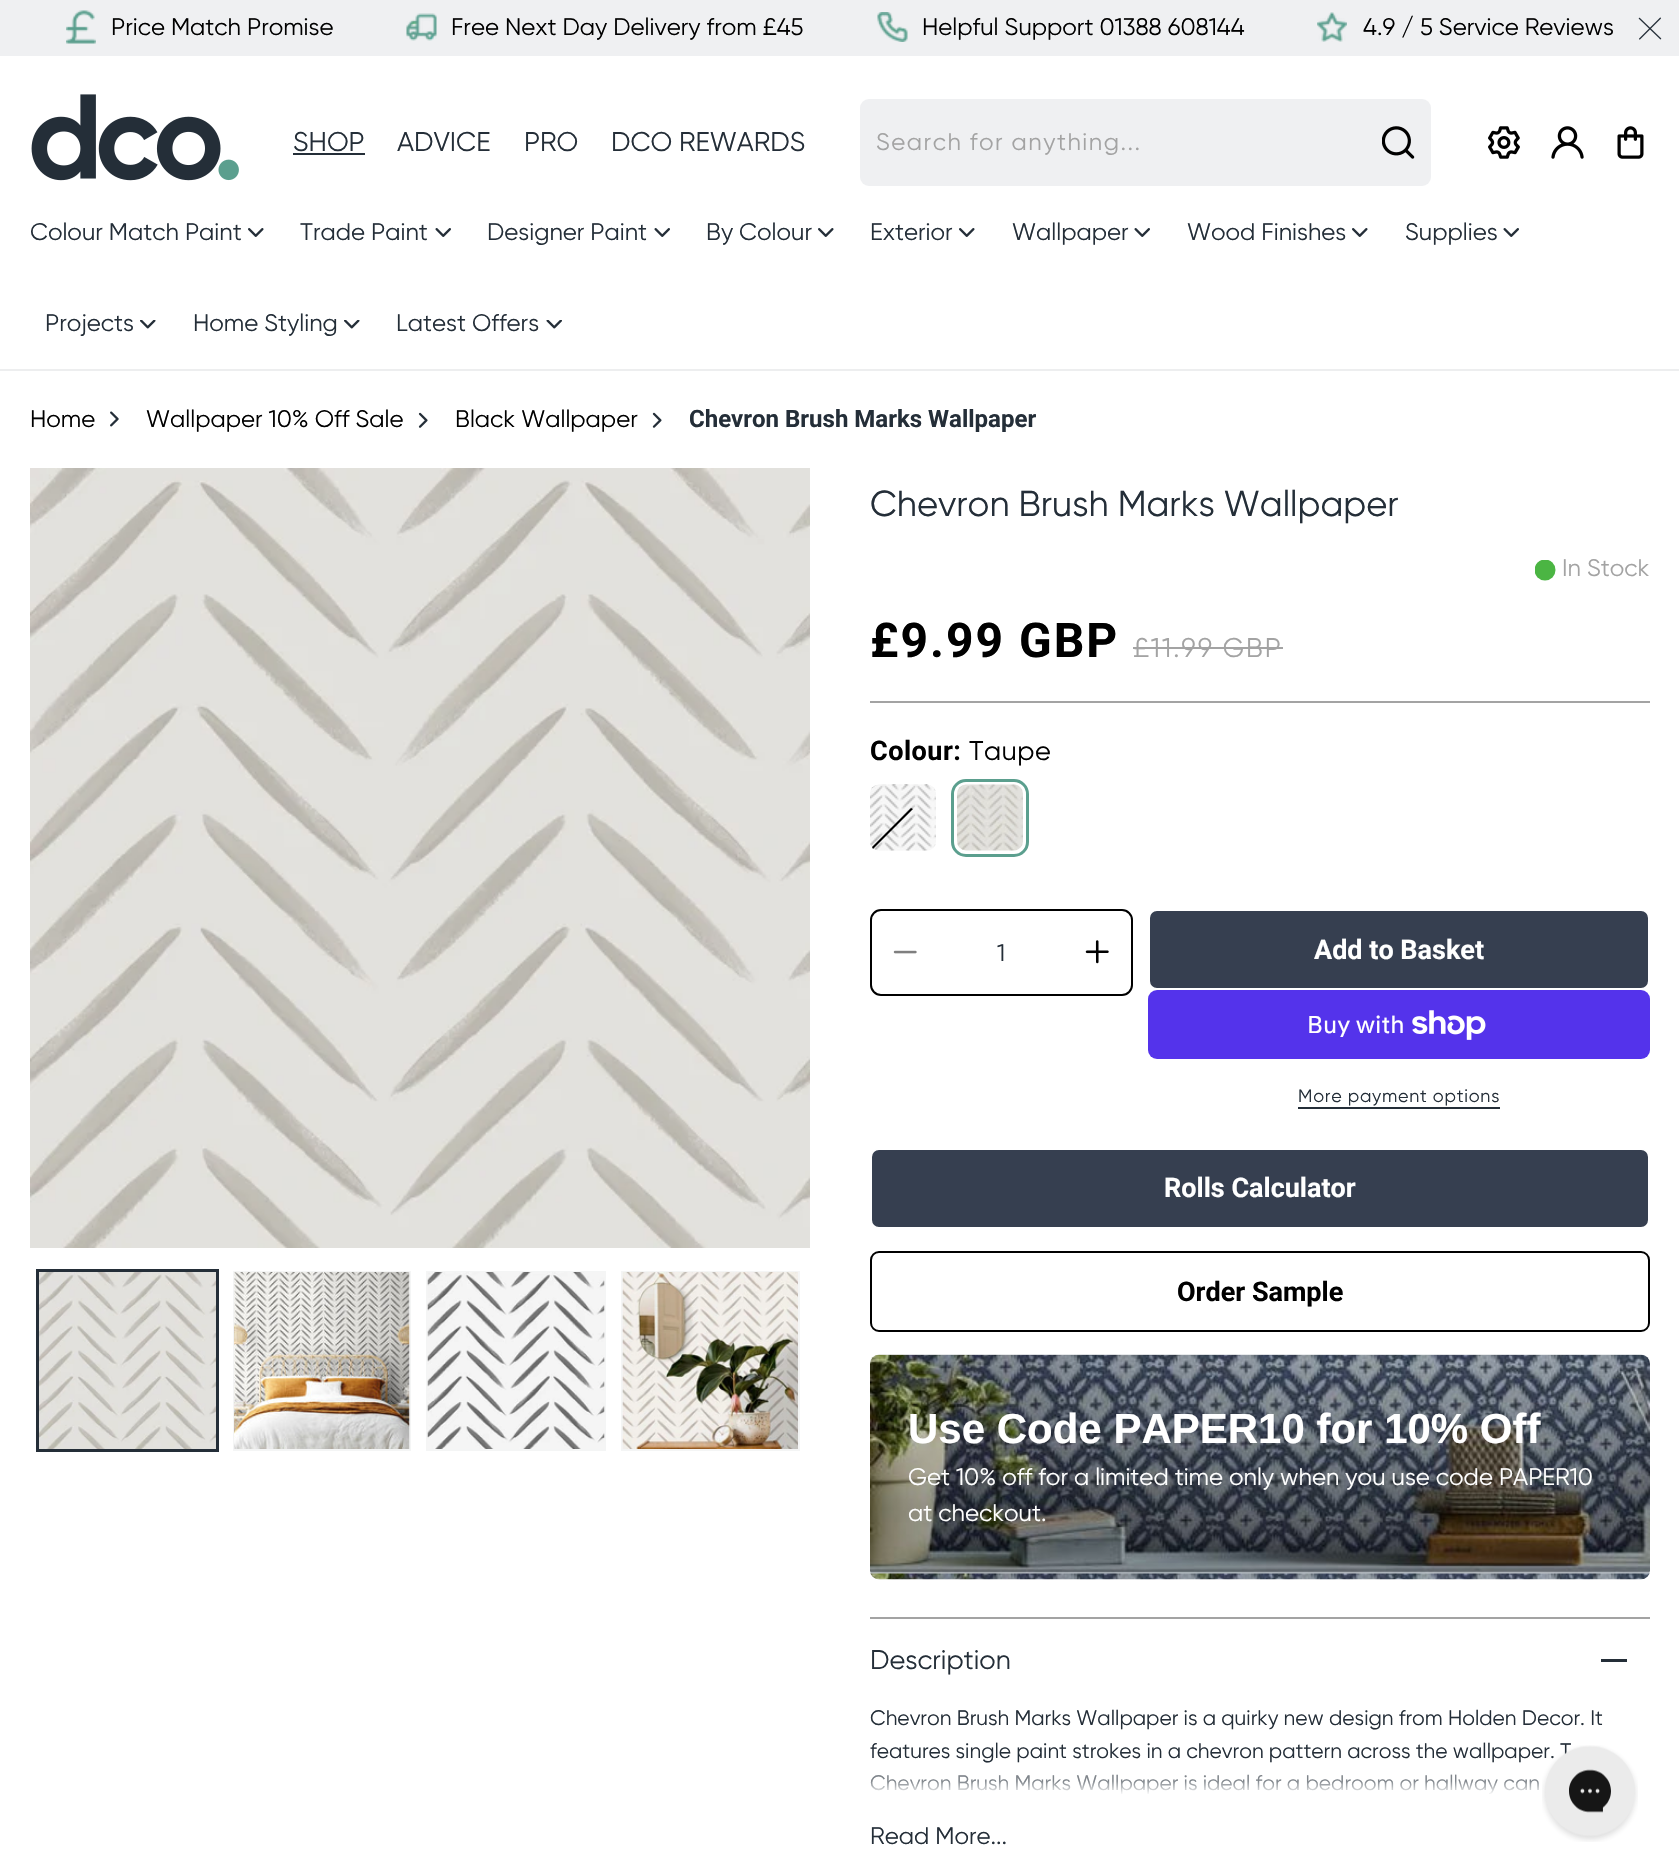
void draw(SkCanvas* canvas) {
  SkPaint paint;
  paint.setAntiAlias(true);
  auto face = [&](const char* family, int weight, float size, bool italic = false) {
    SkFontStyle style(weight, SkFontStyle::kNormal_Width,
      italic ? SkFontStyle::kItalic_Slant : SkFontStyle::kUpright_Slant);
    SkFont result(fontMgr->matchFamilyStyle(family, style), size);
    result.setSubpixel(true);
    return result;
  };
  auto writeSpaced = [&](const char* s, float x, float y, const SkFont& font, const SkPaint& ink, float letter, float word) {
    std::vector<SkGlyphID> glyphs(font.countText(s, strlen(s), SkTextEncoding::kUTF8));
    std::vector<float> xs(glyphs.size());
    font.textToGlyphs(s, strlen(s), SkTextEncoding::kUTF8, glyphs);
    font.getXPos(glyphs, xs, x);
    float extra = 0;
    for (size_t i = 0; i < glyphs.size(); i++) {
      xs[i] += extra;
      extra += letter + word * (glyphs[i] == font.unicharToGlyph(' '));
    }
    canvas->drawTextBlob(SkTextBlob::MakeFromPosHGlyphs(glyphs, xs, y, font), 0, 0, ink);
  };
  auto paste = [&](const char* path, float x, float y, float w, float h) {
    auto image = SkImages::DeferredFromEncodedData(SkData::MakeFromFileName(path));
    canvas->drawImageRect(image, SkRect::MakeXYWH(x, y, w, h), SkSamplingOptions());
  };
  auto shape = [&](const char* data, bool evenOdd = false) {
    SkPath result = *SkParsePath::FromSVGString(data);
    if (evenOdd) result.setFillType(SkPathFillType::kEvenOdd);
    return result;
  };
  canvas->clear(0xffffffff);
  paint.setColor(0xffeff0f2);
  canvas->drawRect(SkRect::MakeXYWH(0, 0, 1679, 56), paint);
  paste("img/1.png", 66, 10, 30, 34);
  paste("img/2.png", 406, 13, 31, 28);
  paste("img/3.png", 877, 12, 31, 30);
  paste("img/4.png", 1317, 12, 30, 30);
  paste("img/5.png", 1638, 17, 24, 23);
  paint.setColor(0xffedeeef);
  canvas->drawRect(SkRect::MakeXYWH(0, 369, 1679, 2), paint);
  paste("img/6.png", 31, 94, 208, 87);
  paint.setColor(0xff242e38);
  canvas->drawRect(SkRect::MakeXYWH(293, 153, 72, 2), paint);
  paint.setColor(0xffeff0f2);
  canvas->drawRoundRect(SkRect::MakeXYWH(860, 99, 571, 87), 9, 9, paint);
  paste("img/7.png", 1382, 126, 33, 33);
  paste("img/8.png", 1488, 126, 32, 33);
  paste("img/9.png", 1551, 126, 33, 33);
  paste("img/10.png", 1617, 126, 27, 33);
  paste("img/11.png", 248, 228, 16, 9);
  paste("img/12.png", 435, 228, 16, 9);
  paste("img/12.png", 654, 228, 16, 9);
  paste("img/11.png", 818, 228, 16, 9);
  paste("img/11.png", 959, 228, 16, 9);
  paste("img/12.png", 1134, 228, 16, 9);
  paste("img/11.png", 1352, 228, 16, 9);
  paste("img/12.png", 1503, 228, 16, 9);
  paste("img/13.png", 140, 320, 16, 9);
  paste("img/13.png", 344, 320, 16, 9);
  paste("img/14.png", 546, 320, 16, 9);
  paste("img/15.png", 110, 411, 9, 16);
  paste("img/16.png", 418, 412, 10, 16);
  paste("img/17.png", 652, 412, 10, 16);
  paste("img/18.png", 30, 468, 780, 780);
  paint.setStroke(true);
  paint.setStrokeWidth(2);
  paint.setColor(0xff242e38);
  canvas->drawRect(SkRect::MakeXYWH(37, 1270, 181, 181), paint);
  canvas->drawRect(SkRect::MakeXYWH(39, 1272, 178, 178), paint);
  paste("img/19.png", 39, 1272, 177, 177);
  paint.setColor(0xfff4f5f5);
  canvas->drawRect(SkRect::MakeXYWH(234, 1272, 176, 178), paint);
  paste("img/20.png", 234, 1272, 176, 177);
  canvas->drawRect(SkRect::MakeXYWH(427, 1272, 178, 178), paint);
  paste("img/21.png", 427, 1272, 178, 177);
  canvas->drawRect(SkRect::MakeXYWH(622, 1272, 177, 178), paint);
  paste("img/22.png", 622, 1272, 176, 177);
  canvas->save();
  canvas->clipRect(SkRect::MakeXYWH(1535, 560, 21, 21));
  paint.setStroke(false);
  paint.setColor(0xff4bb543);
  canvas->drawCircle(1545, 570, 10.5f, paint);
  canvas->restore();
  paint.setColor(0xffa3a3a3);
  canvas->drawRect(SkRect::MakeXYWH(870, 701, 780, 2), paint);
  canvas->drawRect(SkRect::MakeXYWH(1133, 647, 150, 2), paint);
  paste("img/23.png", 870, 784, 66, 67);
  paint.setColor(0x80fafafa);
  canvas->drawRoundRect(SkRect::MakeXYWH(870, 785, 66, 66), 9, 9, paint);
  paint.setColor(0xff000000);
  canvas->drawPath(shape("M873 849L872 847L911 808L913 809Z"), paint);
  paste("img/24.png", 957, 784, 66, 67);
  paint.setStroke(true);
  paint.setStrokeWidth(3);
  paint.setColor(0xff5b9f8e);
  canvas->drawRoundRect(SkRect::MakeXYWH(952.5f, 780.5f, 75, 75), 13.5f, 13.5f, paint);
  paste("img/25.png", 893, 950, 24, 4);
  paste("img/26.png", 1085, 940, 24, 24);
  paint.setStrokeWidth(2);
  paint.setColor(0xff000000);
  canvas->drawRoundRect(SkRect::MakeXYWH(871, 910, 261, 85), 10, 10, paint);
  paint.setStroke(false);
  paint.setColor(0xff363f50);
  canvas->drawRoundRect(SkRect::MakeXYWH(1149, 910, 500, 79), 8, 8, paint);
  paint.setStroke(true);
  paint.setColor(0xffffffff);
  canvas->drawRoundRect(SkRect::MakeXYWH(1149, 910, 500, 79), 8, 8, paint);
  paint.setStroke(false);
  paint.setColor(0xff5433eb);
  canvas->drawRoundRect(SkRect::MakeXYWH(1148, 990, 502, 69), 9, 9, paint);
  paste("img/27.png", 1412, 1010, 74, 30);
  paint.setColor(0xff242e38);
  canvas->drawRect(SkRect::MakeXYWH(1298, 1107, 202, 2), paint);
  paint.setColor(0xff363f50);
  canvas->drawRoundRect(SkRect::MakeXYWH(871, 1149, 778, 79), 8, 8, paint);
  paint.setStroke(true);
  paint.setColor(0xffffffff);
  canvas->drawRoundRect(SkRect::MakeXYWH(871, 1149, 778, 79), 8, 8, paint);
  paint.setColor(0xff000000);
  canvas->drawRoundRect(SkRect::MakeXYWH(871, 1252, 778, 79), 8, 8, paint);
  paste("img/28.png", 870, 1354, 780, 226);
  paint.setStroke(false);
  paint.setColor(0xffa3a3a3);
  canvas->drawRect(SkRect::MakeXYWH(870, 1617, 780, 2), paint);
  paint.setColor(0xff242e38);
  canvas->drawRect(SkRect::MakeXYWH(1601, 1659, 26, 3), paint);
  auto f0 = face("Gilroy", 400, 24);
  paint.setColor(0xff000000);
  {
    const struct { const char* s; float x, y; } items[] = {
      {"Price Match Promise", 111, 35},
      {"Free Next Day Delivery from £45", 451, 35},
      {"Helpful Support 01388 608144", 922, 35},
      {"4.9 / 5 Service Reviews", 1363, 35},
    };
    for (auto [s, x, y] : items) {
      canvas->drawString(s, x, y, f0, paint);
    }
  }
  auto f1 = face("Gilroy", 400, 27);
  paint.setColor(0xff242e38);
  {
    const struct { const char* s; float x, y; } items[] = {
      {"SHOP", 293, 151},
      {"ADVICE", 397, 151},
      {"PRO", 524, 151},
      {"DCO REWARDS", 611, 151},
    };
    for (auto [s, x, y] : items) {
      canvas->drawString(s, x, y, f1, paint);
    }
  }
  paint.setColor(0xffa3a3a3);
  writeSpaced("Search for anything...", 876, 150, f0, paint, 1.5f, 0);
  paint.setColor(0xff242e38);
  {
    const struct { const char* s; float x, y; } items[] = {
      {"Colour Match Paint", 30, 240},
      {"Trade Paint", 300, 240},
      {"Designer Paint", 487, 240},
      {"By Colour", 706, 240},
      {"Exterior", 870, 240},
      {"Wallpaper", 1012, 240},
      {"Wood Finishes", 1187, 240},
      {"Supplies", 1405, 240},
      {"Projects", 45, 331},
      {"Home Styling", 193, 331},
      {"Latest Offers", 396, 331},
    };
    for (auto [s, x, y] : items) {
      canvas->drawString(s, x, y, f0, paint);
    }
  }
  paint.setColor(0xff000000);
  {
    const struct { const char* s; float x, y; } items[] = {
      {"Home", 30, 427},
      {"Wallpaper 10% Off Sale", 146, 427},
      {"Black Wallpaper", 455, 427},
    };
    for (auto [s, x, y] : items) {
      canvas->drawString(s, x, y, f0, paint);
    }
  }
  auto f2 = face("Roboto", 700, 24);
  paint.setColor(0xff242e38);
  canvas->drawString("Chevron Brush Marks Wallpaper", 689, 427, f2, paint);
  auto f3 = face("Gilroy", 400, 36);
  canvas->drawString("Chevron Brush Marks Wallpaper", 870, 516, f3, paint);
  paint.setColor(0xffa3a3a3);
  canvas->drawString("In Stock", 1562, 576, f0, paint);
  auto f4 = face("Roboto", 700, 48);
  paint.setColor(0xff000000);
  writeSpaced("£9.99 GBP", 870, 657, f4, paint, 2, 0);
  paint.setColor(0xffa3a3a3);
  writeSpaced("£11.99 GBP", 1133, 657, f1, paint, 2, 0);
  auto f5 = face("Roboto", 700, 27);
  paint.setColor(0xff000000);
  writeSpaced("Colour:", 870, 760, f5, paint, 0.5f, 0);
  writeSpaced("Taupe", 969, 760, f1, paint, 0.5f, 0);
  paint.setColor(0xff242e38);
  canvas->drawString("1", 997, 961, f0, paint);
  paint.setColor(0xffffffff);
  canvas->drawString("Add to Basket", 1314, 959, f5, paint);
  auto f6 = face("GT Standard", 400, 24);
  canvas->drawString("Buy with", 1307, 1033, f6, paint);
  auto f7 = face("Gilroy", 400, 18);
  paint.setColor(0xff242e38);
  writeSpaced("More payment options", 1298, 1102, f7, paint, 0.75f, 0);
  paint.setColor(0xffffffff);
  canvas->drawString("Rolls Calculator", 1164, 1197, f5, paint);
  paint.setColor(0xff000000);
  canvas->drawString("Order Sample", 1177, 1301, f5, paint);
  auto f8 = face("Liberation Sans", 700, 42);
  paint.setColor(0xffffffff);
  canvas->drawString("Use Code PAPER10 for 10% Off", 908, 1443, f8, paint);
  canvas->drawString("Get 10% off for a limited time only when you use code PAPER10", 908, 1485, f0, paint);
  canvas->drawString("at checkout.", 908, 1521, f0, paint);
  paint.setColor(0xff242e38);
  canvas->drawString("Description", 870, 1669, f1, paint);
  auto f9 = face("Gilroy", 400, 21);
  {
    const struct { const char* s; float x, y; } items[] = {
      {"Chevron Brush Marks Wallpaper is a quirky new design from Holden Decor. It", 870, 1725},
      {"features single paint strokes in a chevron pattern across the wallpaper. T", 870, 1758},
      {"Chevron Brush Marks Wallpaper is ideal for a bedroom or hallway can", 870, 1790},
    };
    for (auto [s, x, y] : items) {
      canvas->drawString(s, x, y, f9, paint);
    }
  }
  {
    const SkColor colors[] = {0x6bffffff, 0xffffffff};
    const float stops[] = {0.1f, 0.27f};
    const SkPoint ends[] = {{1260, 1773}, {1260, 1854}};
    paint.setShader(SkGradientShader::MakeLinear(ends, colors, stops, 2, SkTileMode::kClamp));
    paint.setAlpha(255);
  }
  canvas->drawRect(SkRect::MakeXYWH(870, 1774, 670, 21), paint);
  paint.setShader(nullptr);
  paint.setColor(0xff242e38);
  canvas->drawString("Read More...", 870, 1844, f0, paint);
  paste("img/29.png", 1542, 1745, 96, 97);
}
